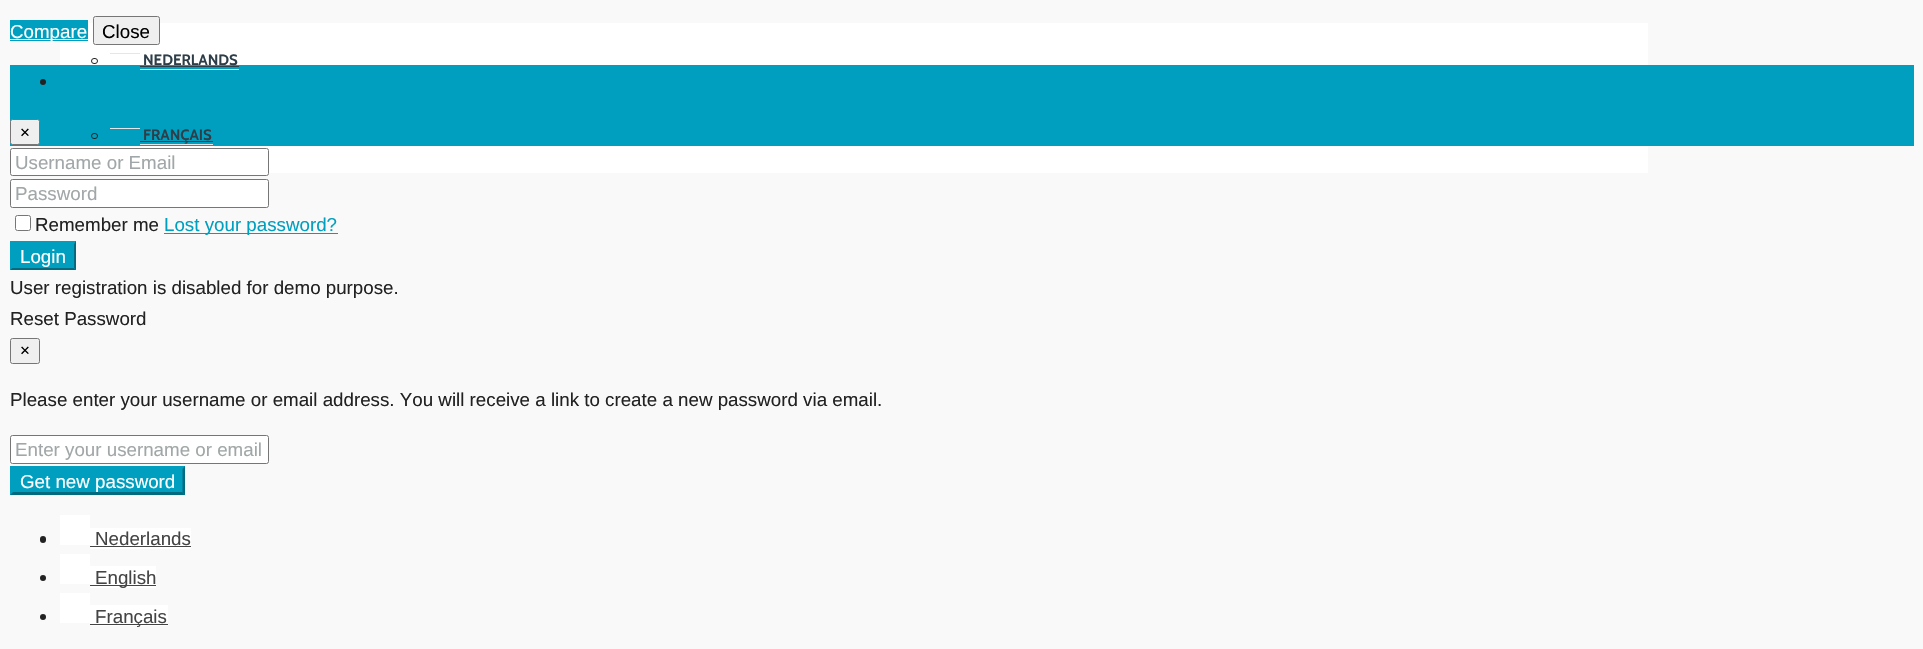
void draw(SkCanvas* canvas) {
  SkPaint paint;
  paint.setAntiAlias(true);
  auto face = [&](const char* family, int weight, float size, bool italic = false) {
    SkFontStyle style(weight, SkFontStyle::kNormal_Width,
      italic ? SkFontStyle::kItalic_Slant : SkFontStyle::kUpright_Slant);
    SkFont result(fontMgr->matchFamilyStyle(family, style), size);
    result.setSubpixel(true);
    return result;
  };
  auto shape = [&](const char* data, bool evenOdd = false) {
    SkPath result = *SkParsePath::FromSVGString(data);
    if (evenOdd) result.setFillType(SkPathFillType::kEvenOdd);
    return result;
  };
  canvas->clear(0xfff9f9f9);
  {
    const struct { float x, y, w, h; SkColor color; } items[] = {
      {60, 23, 1588, 150, 0xffffffff},
      {10, 20, 78, 21, 0xff009fbf},
      {10, 39, 78, 1, 0xffffffff},
    };
    for (auto [x, y, w, h, color] : items) {
      paint.setColor(color);
      canvas->drawRect(SkRect::MakeXYWH(x, y, w, h), paint);
    }
  }
  paint.setColor(0xffefefef);
  canvas->drawRoundRect(SkRect::MakeXYWH(93.5f, 16.5f, 66, 28), 2, 2, paint);
  paint.setStroke(true);
  paint.setStrokeWidth(1);
  paint.setColor(0xff767676);
  canvas->drawRoundRect(SkRect::MakeXYWH(93.5f, 16.5f, 66, 28), 2, 2, paint);
  paint.setColor(0xff222222);
  canvas->drawRoundRect(SkRect::MakeXYWH(91.5f, 58.5f, 6, 5), 2.5f, 2.5f, paint);
  paint.setStroke(false);
  {
    const struct { float x, y, w, h; SkColor color; } items[] = {
      {110, 53, 30, 1, 0xffe6e6e6},
      {10, 65, 1904, 81, 0xff009fbf},
      {140, 69, 99, 1, 0xffe6e6e6},
      {140, 66, 99, 1, 0xff2e3e49},
    };
    for (auto [x, y, w, h, color] : items) {
      paint.setColor(color);
      canvas->drawRect(SkRect::MakeXYWH(x, y, w, h), paint);
    }
  }
  paint.setStroke(true);
  paint.setColor(0xff222222);
  canvas->drawRoundRect(SkRect::MakeXYWH(91.5f, 133.5f, 6, 5), 2.5f, 2.5f, paint);
  paint.setStroke(false);
  {
    const struct { float x, y, w, h; SkColor color; } items[] = {
      {110, 128, 30, 1, 0xffe6e6e6},
      {140, 144, 73, 1, 0xffe6e6e6},
      {140, 141, 73, 1, 0xff2e3e49},
    };
    for (auto [x, y, w, h, color] : items) {
      paint.setColor(color);
      canvas->drawRect(SkRect::MakeXYWH(x, y, w, h), paint);
    }
  }
  paint.setColor(0xff222222);
  canvas->drawCircle(43, 82, 3, paint);
  paint.setColor(0xffefefef);
  canvas->drawRoundRect(SkRect::MakeXYWH(10.5f, 119.5f, 29, 25), 2, 2, paint);
  paint.setStroke(true);
  paint.setColor(0xff767676);
  canvas->drawRoundRect(SkRect::MakeXYWH(10.5f, 119.5f, 29, 25), 2, 2, paint);
  paint.setStroke(false);
  paint.setColor(0xffffffff);
  canvas->drawRoundRect(SkRect::MakeXYWH(10.5f, 148.5f, 258, 27), 2, 2, paint);
  paint.setStroke(true);
  paint.setColor(0xff767676);
  canvas->drawRoundRect(SkRect::MakeXYWH(10.5f, 148.5f, 258, 27), 2, 2, paint);
  paint.setStroke(false);
  paint.setColor(0xffffffff);
  canvas->drawRoundRect(SkRect::MakeXYWH(10.5f, 179.5f, 258, 28), 2, 2, paint);
  paint.setStroke(true);
  paint.setColor(0xff767676);
  canvas->drawRoundRect(SkRect::MakeXYWH(10.5f, 179.5f, 258, 28), 2, 2, paint);
  paint.setStroke(false);
  paint.setColor(0xffffffff);
  canvas->drawRoundRect(SkRect::MakeXYWH(15.5f, 215.5f, 15, 15), 2, 2, paint);
  paint.setStroke(true);
  paint.setColor(0xff767676);
  canvas->drawRoundRect(SkRect::MakeXYWH(15.5f, 215.5f, 15, 15), 2, 2, paint);
  paint.setStroke(false);
  paint.setColor(0xff009fbf);
  canvas->drawRect(SkRect::MakeXYWH(164, 233, 174, 1), paint);
  canvas->drawRect(SkRect::MakeXYWH(10, 241, 66, 29), paint);
  paint.setColor(0xff006a7f);
  canvas->drawPath(shape("M76 241V270L74 267.5V244Z"), paint);
  canvas->drawPath(shape("M76 270H10L12 268H74Z"), paint);
  paint.setColor(0xff009fbf);
  canvas->drawPath(shape("M10 270V241L12.5 244V267.5Z"), paint);
  paint.setColor(0xffefefef);
  canvas->drawRoundRect(SkRect::MakeXYWH(10.5f, 338.5f, 29, 25), 2, 2, paint);
  paint.setStroke(true);
  paint.setColor(0xff767676);
  canvas->drawRoundRect(SkRect::MakeXYWH(10.5f, 338.5f, 29, 25), 2, 2, paint);
  paint.setStroke(false);
  paint.setColor(0xffffffff);
  canvas->drawRoundRect(SkRect::MakeXYWH(10.5f, 435.5f, 258, 28), 2, 2, paint);
  paint.setStroke(true);
  paint.setColor(0xff767676);
  canvas->drawRoundRect(SkRect::MakeXYWH(10.5f, 435.5f, 258, 28), 2, 2, paint);
  paint.setStroke(false);
  paint.setColor(0xff009fbf);
  canvas->drawRect(SkRect::MakeXYWH(10, 466, 175, 29), paint);
  paint.setColor(0xff006a7f);
  canvas->drawPath(shape("M185 466V495L182.5 492.5V469Z"), paint);
  canvas->drawPath(shape("M185 495H10L12 492H182Z"), paint);
  paint.setColor(0xff009fbf);
  canvas->drawPath(shape("M10 495V466L12.5 469V492.5Z"), paint);
  paint.setColor(0xff222222);
  canvas->drawRoundRect(SkRect::MakeXYWH(40, 536, 6, 7), 3, 3, paint);
  {
    const struct { float x, y, w, h; SkColor color; } items[] = {
      {60, 515, 30, 30, 0xffffffff},
      {90, 528, 101, 21, 0xffffffff},
      {90, 546, 101, 1, 0xff444444},
    };
    for (auto [x, y, w, h, color] : items) {
      paint.setColor(color);
      canvas->drawRect(SkRect::MakeXYWH(x, y, w, h), paint);
    }
  }
  paint.setColor(0xff222222);
  canvas->drawCircle(43, 578, 3, paint);
  {
    const struct { float x, y, w, h; SkColor color; } items[] = {
      {60, 554, 30, 30, 0xffffffff},
      {90, 566, 66, 22, 0xffffffff},
      {90, 585, 66, 1, 0xff444444},
    };
    for (auto [x, y, w, h, color] : items) {
      paint.setColor(color);
      canvas->drawRect(SkRect::MakeXYWH(x, y, w, h), paint);
    }
  }
  paint.setColor(0xff222222);
  canvas->drawCircle(43, 617, 3, paint);
  {
    const struct { float x, y, w, h; SkColor color; } items[] = {
      {60, 593, 30, 30, 0xffffffff},
      {90, 605, 78, 21, 0xffffffff},
      {90, 624, 78, 1, 0xff444444},
    };
    for (auto [x, y, w, h, color] : items) {
      paint.setColor(color);
      canvas->drawRect(SkRect::MakeXYWH(x, y, w, h), paint);
    }
  }
  auto f0 = face("Liberation Sans", 400, 18.75f);
  paint.setColor(0xffffffff);
  canvas->drawString("Compare", 10, 38, f0, paint);
  paint.setColor(0xff000000);
  canvas->drawString("Close", 102, 38, f0, paint);
  auto f1 = face("Cabin", 700, 15);
  paint.setColor(0xff2e3e49);
  canvas->drawString("NEDERLANDS", 143, 65, f1, paint);
  canvas->drawString("FRANÇAIS", 143, 140, f1, paint);
  auto f2 = face("Liberation Sans", 400, 17);
  paint.setColor(0xff000000);
  canvas->drawString("×", 20, 138, f2, paint);
  paint.setColor(0xffa1a7a8);
  canvas->drawString("Username or Email", 15, 169, f0, paint);
  canvas->drawString("Password", 15, 200, f0, paint);
  paint.setColor(0xff222222);
  canvas->drawString("Remember me", 35, 231, f0, paint);
  paint.setColor(0xff009fbf);
  canvas->drawString("Lost your password?", 164, 231, f0, paint);
  paint.setColor(0xffffffff);
  canvas->drawString("Login", 20, 263, f0, paint);
  paint.setColor(0xff222222);
  canvas->drawString("User registration is disabled for demo purpose.", 10, 294, f0, paint);
  canvas->drawString("Reset Password", 10, 325, f0, paint);
  paint.setColor(0xff000000);
  canvas->drawString("×", 20, 356, f2, paint);
  paint.setColor(0xff222222);
  canvas->drawString("Please enter your username or email address. You will receive a link to create a new password via email.", 10, 406, f0, paint);
  paint.setColor(0xffa1a7a8);
  canvas->drawString("Enter your username or email", 15, 456, f0, paint);
  paint.setColor(0xffffffff);
  canvas->drawString("Get new password", 20, 488, f0, paint);
  paint.setColor(0xff444444);
  {
    const struct { const char* s; float x, y; } items[] = {
      {"Nederlands", 95, 545},
      {"English", 95, 584},
      {"Français", 95, 623},
    };
    for (auto [s, x, y] : items) {
      canvas->drawString(s, x, y, f0, paint);
    }
  }
}
